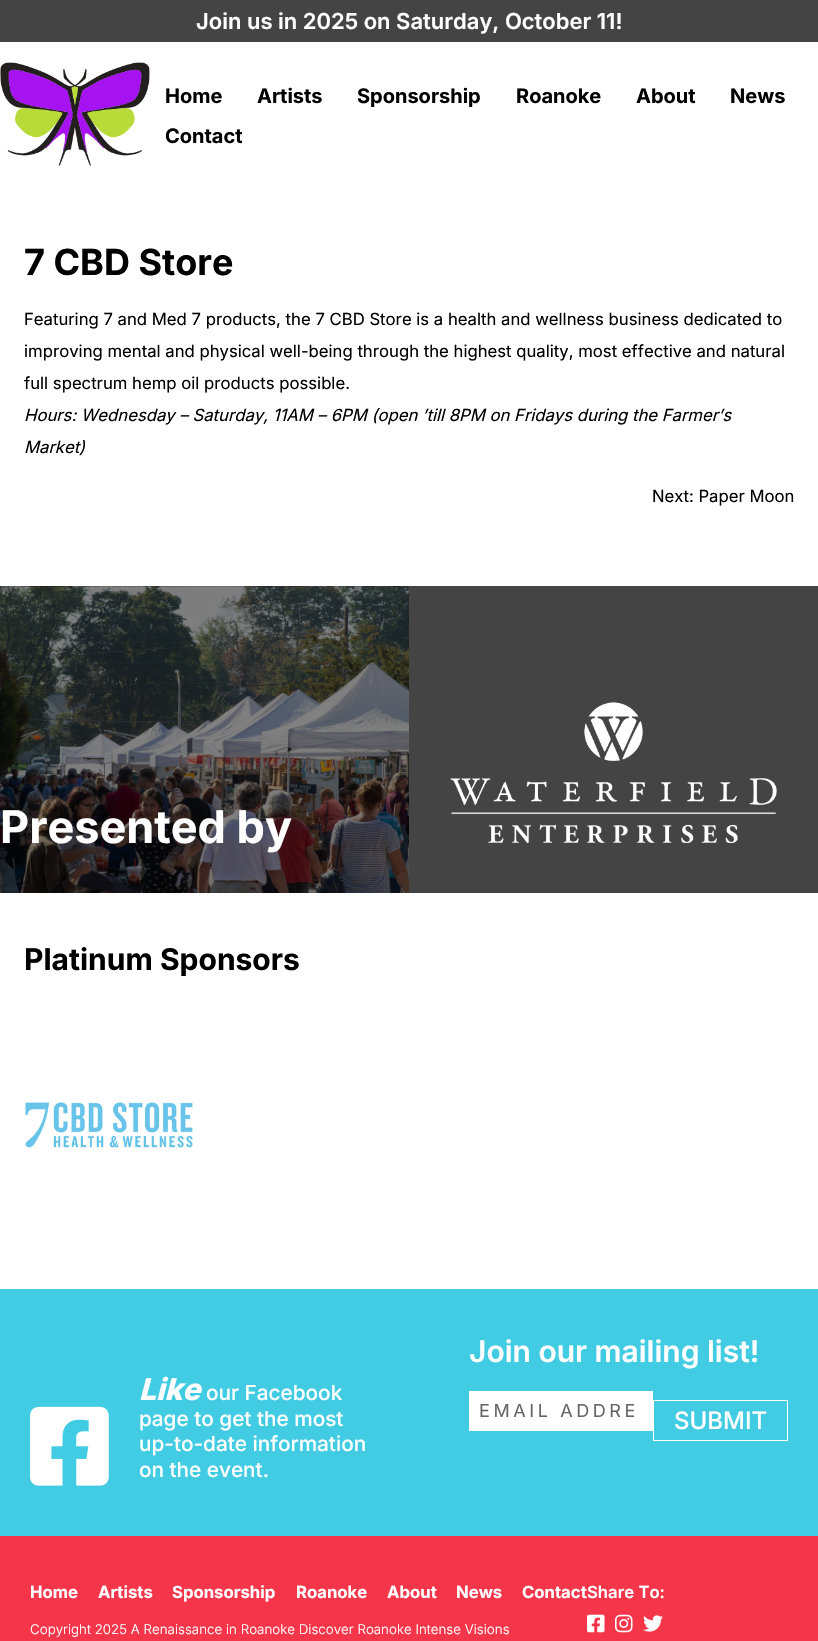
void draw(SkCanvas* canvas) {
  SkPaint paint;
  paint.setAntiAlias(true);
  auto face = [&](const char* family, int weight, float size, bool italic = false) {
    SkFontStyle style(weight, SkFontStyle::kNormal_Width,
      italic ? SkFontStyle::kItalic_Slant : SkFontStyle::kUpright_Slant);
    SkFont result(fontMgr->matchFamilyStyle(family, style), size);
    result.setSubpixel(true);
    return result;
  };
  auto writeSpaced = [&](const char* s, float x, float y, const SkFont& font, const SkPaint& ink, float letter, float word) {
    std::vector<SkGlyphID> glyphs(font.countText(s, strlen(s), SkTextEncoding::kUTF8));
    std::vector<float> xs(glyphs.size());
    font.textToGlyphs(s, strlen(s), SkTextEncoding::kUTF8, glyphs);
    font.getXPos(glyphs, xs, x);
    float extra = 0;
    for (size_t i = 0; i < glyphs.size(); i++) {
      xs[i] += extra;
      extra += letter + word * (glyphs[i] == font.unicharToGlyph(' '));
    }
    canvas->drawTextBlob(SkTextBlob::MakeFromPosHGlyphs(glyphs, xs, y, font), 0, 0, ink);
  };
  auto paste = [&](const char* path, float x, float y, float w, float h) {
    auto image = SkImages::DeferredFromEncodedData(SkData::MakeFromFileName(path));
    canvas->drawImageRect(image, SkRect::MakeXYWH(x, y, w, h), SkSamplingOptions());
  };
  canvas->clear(0xffffffff);
  paint.setColor(0xff444444);
  canvas->drawRect(SkRect::MakeXYWH(0, 0, 818, 42), paint);
  paste("img/1.png", 0, 62, 150, 104);
  canvas->drawRect(SkRect::MakeXYWH(409, 586, 409, 307), paint);
  paste("img/2.png", 0, 586, 409, 307);
  paste("img/3.png", 450, 702, 327, 141);
  paste("img/4.png", 25, 1102, 168, 46);
  paint.setColor(0xff42cce3);
  canvas->drawRect(SkRect::MakeXYWH(0, 1289, 818, 247), paint);
  paste("img/5.png", 30, 1406, 79, 80);
  paint.setColor(0xffffffff);
  canvas->drawRect(SkRect::MakeXYWH(469, 1391, 184, 40), paint);
  paint.setStroke(true);
  paint.setStrokeWidth(1);
  canvas->drawRect(SkRect::MakeXYWH(653.5f, 1400.5f, 134, 40), paint);
  paint.setStroke(false);
  paint.setColor(0xfff5364a);
  canvas->drawRect(SkRect::MakeXYWH(0, 1536, 818, 105), paint);
  paste("img/6.png", 587, 1614, 18, 19);
  paste("img/7.png", 615, 1614, 18, 19);
  paste("img/8.png", 643, 1615, 20, 17);
  auto f0 = face("Inter", 600, 22);
  paint.setColor(0xffffffff);
  canvas->drawString("Join us in 2025 on Saturday, October 11!", 196, 29, f0, paint);
  auto f1 = face("Inter", 700, 20);
  paint.setColor(0xff000000);
  {
    const struct { const char* s; float x, y; } items[] = {
      {"Home", 165, 103},
      {"Artists", 257, 103},
      {"Sponsorship", 357, 103},
      {"Roanoke", 516, 103},
      {"About", 636, 103},
      {"News", 730, 103},
      {"Contact", 165, 143},
    };
    for (auto [s, x, y] : items) {
      canvas->drawString(s, x, y, f1, paint);
    }
  }
  auto f2 = face("Inter", 700, 36);
  canvas->drawString("7 CBD Store", 24, 275, f2, paint);
  auto f3 = face("Inter", 400, 16.7f);
  {
    const struct { const char* s; float x, y; } items[] = {
      {"Featuring 7 and Med 7 products, the 7 CBD Store is a health and wellness business dedicated to", 24, 325},
      {"improving mental and physical well-being through the highest quality, most effective and natural", 24, 357},
      {"full spectrum hemp oil products possible.", 24, 389},
    };
    for (auto [s, x, y] : items) {
      canvas->drawString(s, x, y, f3, paint);
    }
  }
  auto f4 = face("Inter", 400, 16.7f, true);
  canvas->drawString("Hours: Wednesday – Saturday, 11AM – 6PM (open ’till 8PM on Fridays during the Farmer’s", 24, 421, f4, paint);
  canvas->drawString("Market)", 24, 453, f4, paint);
  canvas->drawString("Next: Paper Moon", 652, 502, f3, paint);
  auto f5 = face("Inter", 700, 45);
  paint.setColor(0xffffffff);
  canvas->drawString("Presented by", 0, 843, f5, paint);
  auto f6 = face("Inter", 700, 30);
  paint.setColor(0xff000000);
  canvas->drawString("Platinum Sponsors", 24, 970, f6, paint);
  auto f7 = face("Inter", 800, 30, true);
  paint.setColor(0xffffffff);
  canvas->drawString("Like", 139, 1400, f7, paint);
  auto f8 = face("Inter", 500, 20.75f);
  {
    const struct { const char* s; float x, y; } items[] = {
      {"our Facebook", 206, 1400},
      {"page to get the most", 139, 1426},
      {"up-to-date information", 139, 1451},
      {"on the event.", 139, 1477},
    };
    for (auto [s, x, y] : items) {
      canvas->drawString(s, x, y, f8, paint);
    }
  }
  auto f9 = face("Inter", 600, 30);
  canvas->drawString("Join our mailing list!", 469, 1362, f9, paint);
  auto f10 = face("Inter", 400, 18);
  paint.setColor(0xff666666);
  writeSpaced("EMAIL ADDRE", 479, 1417, f10, paint, 3.6f, 0);
  auto f11 = face("Inter", 500, 24);
  paint.setColor(0xffffffff);
  canvas->drawString("SUBMIT", 674, 1429, f11, paint);
  auto f12 = face("Inter", 700, 16.7f);
  {
    const struct { const char* s; float x, y; } items[] = {
      {"Home", 30, 1598},
      {"Artists", 98, 1598},
      {"Sponsorship", 172, 1598},
      {"Roanoke", 296, 1598},
      {"About", 387, 1598},
      {"News", 456, 1598},
      {"Contact", 522, 1598},
    };
    for (auto [s, x, y] : items) {
      canvas->drawString(s, x, y, f12, paint);
    }
  }
  auto f13 = face("Inter", 300, 13.35f);
  canvas->drawString("Copyright 2025 A Renaissance in Roanoke Discover Roanoke Intense Visions", 30, 1634, f13, paint);
  auto f14 = face("Inter", 600, 16.7f);
  canvas->drawString("Share To:", 587, 1598, f14, paint);
}
